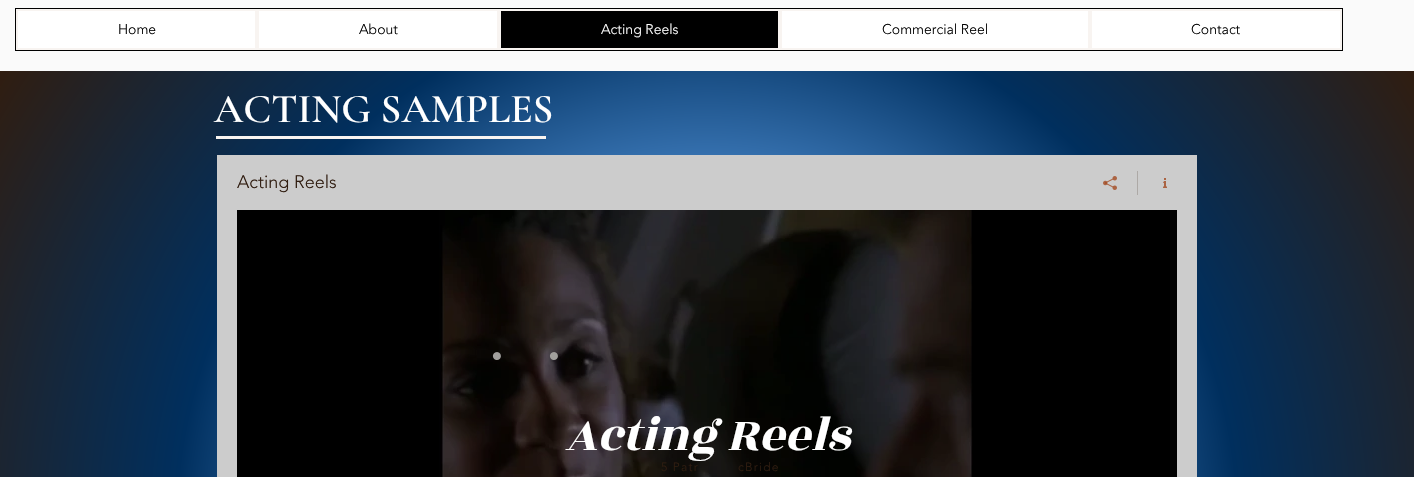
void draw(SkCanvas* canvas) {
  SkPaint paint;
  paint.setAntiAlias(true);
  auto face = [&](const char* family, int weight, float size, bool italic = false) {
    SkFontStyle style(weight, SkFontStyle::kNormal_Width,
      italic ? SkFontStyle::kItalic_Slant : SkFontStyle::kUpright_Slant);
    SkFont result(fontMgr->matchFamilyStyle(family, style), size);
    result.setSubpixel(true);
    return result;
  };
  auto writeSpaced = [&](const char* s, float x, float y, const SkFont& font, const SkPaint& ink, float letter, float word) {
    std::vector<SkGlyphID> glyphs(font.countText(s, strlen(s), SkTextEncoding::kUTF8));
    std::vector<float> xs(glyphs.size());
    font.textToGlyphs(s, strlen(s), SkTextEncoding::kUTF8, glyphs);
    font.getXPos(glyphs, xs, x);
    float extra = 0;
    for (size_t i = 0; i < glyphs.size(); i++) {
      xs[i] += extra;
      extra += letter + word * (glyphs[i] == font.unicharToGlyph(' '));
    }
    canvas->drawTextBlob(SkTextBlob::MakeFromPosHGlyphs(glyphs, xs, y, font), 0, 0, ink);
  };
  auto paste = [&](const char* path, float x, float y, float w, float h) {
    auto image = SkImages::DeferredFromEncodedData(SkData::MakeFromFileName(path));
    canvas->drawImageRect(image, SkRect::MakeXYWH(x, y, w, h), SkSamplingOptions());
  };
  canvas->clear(0xfffafafa);
  paint.setColor(0xffffffff);
  canvas->drawRect(SkRect::MakeXYWH(18, 11, 1322, 37), paint);
  paint.setStroke(true);
  paint.setStrokeWidth(1);
  paint.setColor(0xff000000);
  canvas->drawRect(SkRect::MakeXYWH(15.5f, 8.5f, 1327, 42), paint);
  paint.setStrokeWidth(2);
  paint.setColor(0xfff8f4f1);
  canvas->drawRect(SkRect::MakeXYWH(17, 10, 239, 39), paint);
  canvas->drawRect(SkRect::MakeXYWH(258, 10, 240, 39), paint);
  paint.setStroke(false);
  paint.setColor(0xff000000);
  canvas->drawRect(SkRect::MakeXYWH(500, 10, 279, 39), paint);
  paint.setStroke(true);
  paint.setColor(0xfff8f4f1);
  canvas->drawRect(SkRect::MakeXYWH(500, 10, 279, 39), paint);
  canvas->drawRect(SkRect::MakeXYWH(781, 10, 308, 39), paint);
  canvas->drawRect(SkRect::MakeXYWH(1091, 10, 250, 39), paint);
  paint.setStroke(false);
  {
    const SkColor colors[] = {0xffe4ebfc, 0xff589be3, 0xff002f5e, 0xff301d10};
    const float stops[] = {0, 0.32f, 0.63f, 1};
    paint.setShader(SkGradientShader::MakeRadial({707, 530}, 843, colors, stops, 4, SkTileMode::kClamp));
    paint.setAlpha(255);
  }
  canvas->drawRect(SkRect::MakeXYWH(0, 71, 1414, 406), paint);
  paint.setShader(nullptr);
  {
    const struct { float x, y, w, h; SkColor color; } items[] = {
      {216, 136, 330, 3, 0xfff8f4f1},
      {217, 155, 980, 322, 0xffcccccc},
      {1137, 171, 1, 24, 0xffada9a6},
    };
    for (auto [x, y, w, h, color] : items) {
      paint.setColor(color);
      canvas->drawRect(SkRect::MakeXYWH(x, y, w, h), paint);
    }
  }
  paste("img/1.png", 1103, 176, 14, 14);
  paste("img/2.png", 1163, 178, 4, 10);
  paint.setColor(0xff000000);
  canvas->drawRect(SkRect::MakeXYWH(237, 210, 940, 267), paint);
  paste("img/3.png", 439, 210, 534, 267);
  paste("img/4.png", 492, 352, 9, 8);
  paste("img/5.png", 549, 352, 9, 8);
  auto f0 = face("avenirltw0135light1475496", 300, 14);
  canvas->drawString("Home", 118, 34, f0, paint);
  canvas->drawString("About", 359, 34, f0, paint);
  paint.setColor(0xffffffff);
  canvas->drawString("Acting Reels", 601, 34, f0, paint);
  paint.setColor(0xff000000);
  canvas->drawString("Commercial Reel", 882, 34, f0, paint);
  canvas->drawString("Contact", 1191, 34, f0, paint);
  auto f1 = face("Cormorant Garamond", 600, 41);
  paint.setColor(0xffffffff);
  canvas->drawString("ACTING SAMPLES", 214, 122, f1, paint);
  auto f2 = face("avenirltw0135light1475496", 300, 18);
  paint.setColor(0xff301d10);
  canvas->drawString("Acting Reels", 237, 188, f2, paint);
  auto f3 = face("Rozha One", 400, 50, true);
  paint.setColor(0xffffffff);
  canvas->drawString("Acting Reels", 565, 450, f3, paint);
  auto f4 = face("avenirltw0135light1475496", 300, 12);
  paint.setColor(0xff301d10);
  writeSpaced("5 Patr", 661, 471, f4, paint, 1.25f, 0);
  writeSpaced("cBride", 738, 471, f4, paint, 1.25f, 0);
}
